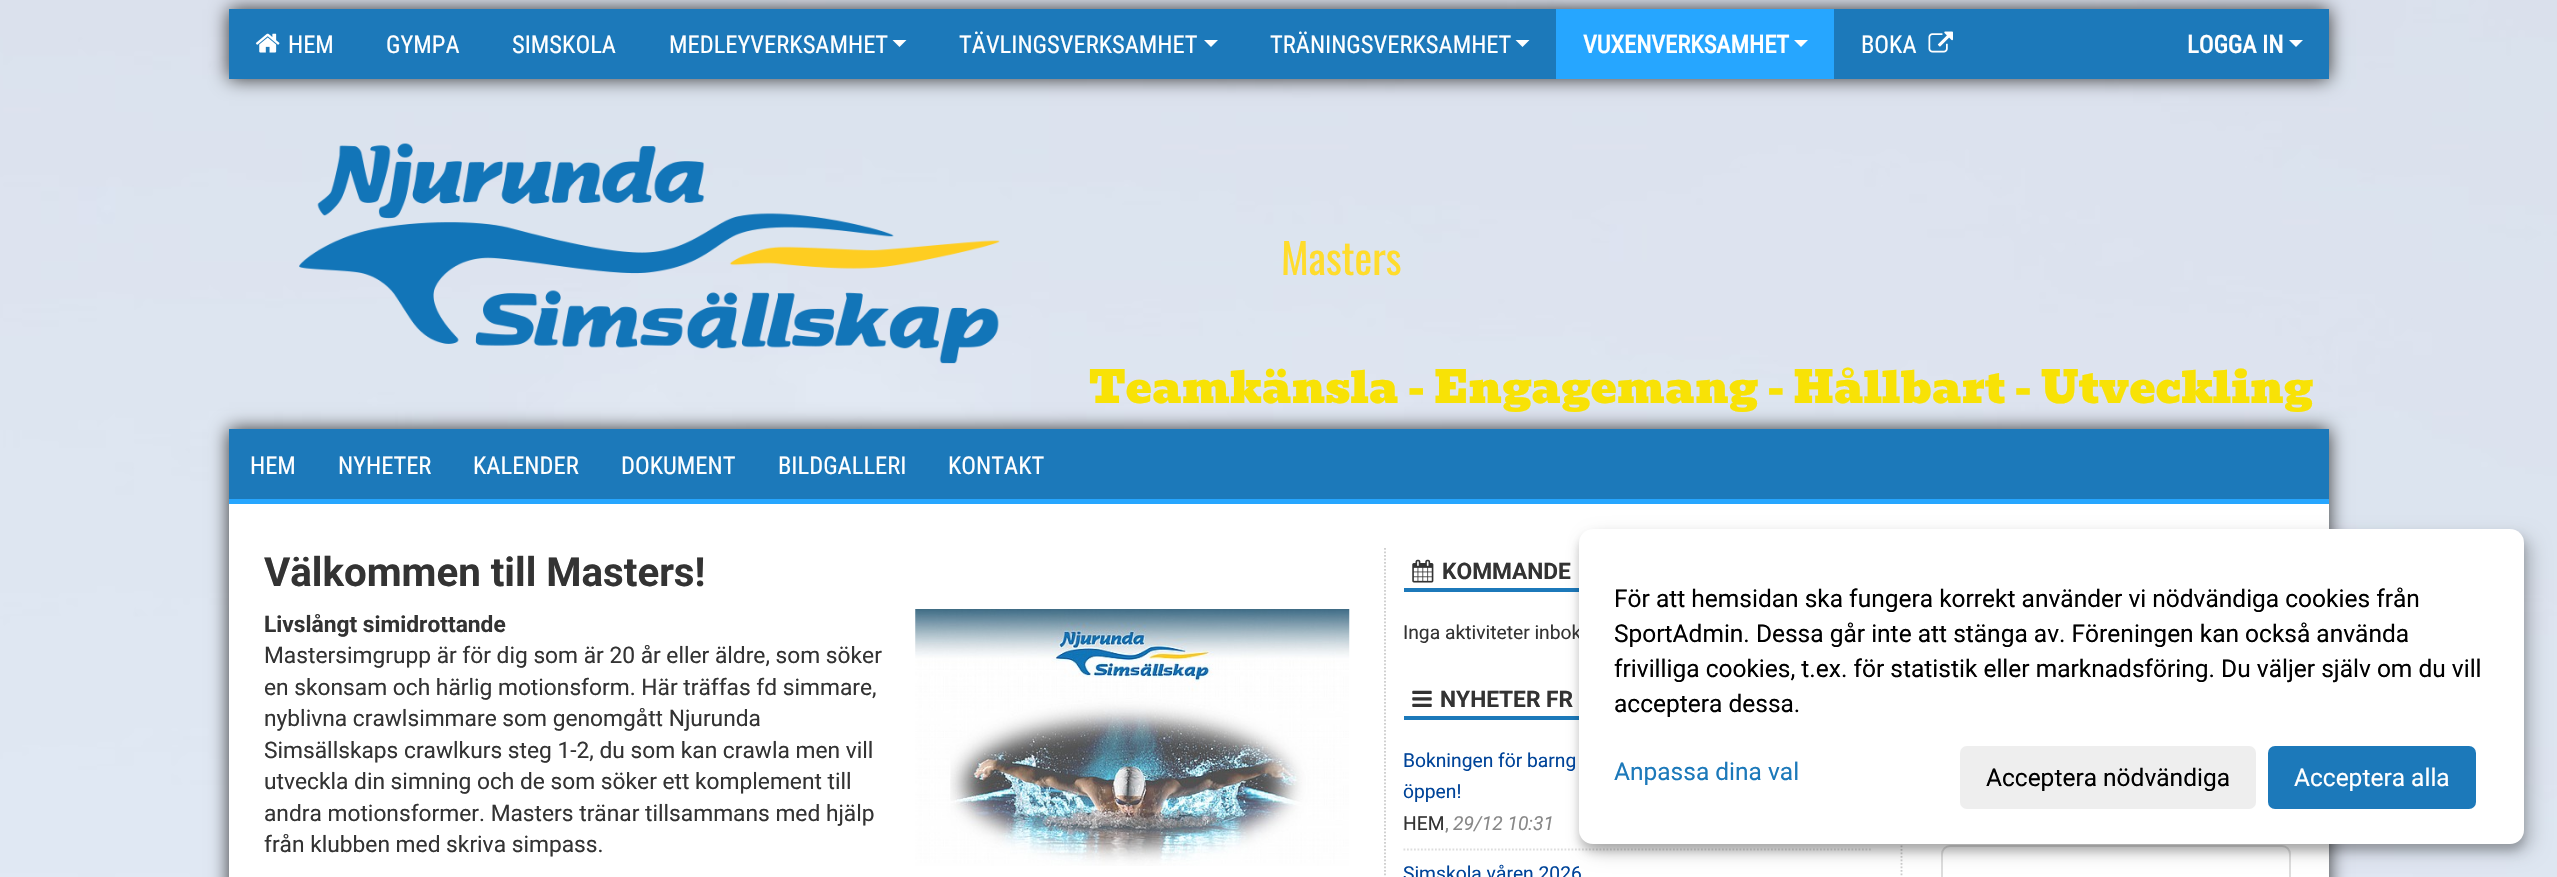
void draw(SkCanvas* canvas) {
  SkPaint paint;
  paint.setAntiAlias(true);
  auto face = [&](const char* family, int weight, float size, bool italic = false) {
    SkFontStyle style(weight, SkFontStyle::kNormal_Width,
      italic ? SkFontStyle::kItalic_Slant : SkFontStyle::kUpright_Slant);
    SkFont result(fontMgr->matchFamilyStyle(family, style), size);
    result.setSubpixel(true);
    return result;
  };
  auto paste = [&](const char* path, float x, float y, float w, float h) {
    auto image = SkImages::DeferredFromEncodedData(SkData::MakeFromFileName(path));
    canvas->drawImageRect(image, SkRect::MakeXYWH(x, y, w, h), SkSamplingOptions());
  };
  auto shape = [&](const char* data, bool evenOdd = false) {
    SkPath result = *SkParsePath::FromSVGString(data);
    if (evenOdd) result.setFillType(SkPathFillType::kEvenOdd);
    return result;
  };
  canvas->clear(0xffffffff);
  paste("img/1.png", 0, 0, 2557, 877);
  paint.setColor(0xff333333);
  paint.setMaskFilter(SkMaskFilter::MakeBlur(kNormal_SkBlurStyle, 9));
  canvas->drawRect(SkRect::MakeXYWH(229, 9, 2100, 70), paint);
  paint.setMaskFilter(nullptr);
  paint.setColor(0xff1c79ba);
  canvas->drawRect(SkRect::MakeXYWH(229, 9, 2100, 70), paint);
  paste("img/2.png", 255, 33, 25, 20);
  paint.setColor(0xffffffff);
  canvas->drawPath(shape("M892.5 40H906.5L899.5 47Z"), paint);
  canvas->drawPath(shape("M1204 40H1218L1211 47Z"), paint);
  canvas->drawPath(shape("M1515.5 40H1529.5L1522.5 47Z"), paint);
  paint.setColor(0xff26a6ff);
  canvas->drawRect(SkRect::MakeXYWH(1556, 9, 278, 70), paint);
  paint.setColor(0xffffffff);
  canvas->drawPath(shape("M1794 40H1808L1801 47Z"), paint);
  paste("img/3.png", 1928, 31, 25, 22);
  canvas->drawPath(shape("M2289 40H2303L2296 47Z"), paint);
  paste("img/4.png", 299, 143, 701, 221);
  paint.setColor(0xff333333);
  paint.setMaskFilter(SkMaskFilter::MakeBlur(kNormal_SkBlurStyle, 9));
  canvas->drawRect(SkRect::MakeXYWH(229, 429, 2100, 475), paint);
  paint.setMaskFilter(nullptr);
  {
    const struct { float x, y, w, h; SkColor color; } items[] = {
      {229, 504, 2100, 373, 0xffffffff},
      {229, 429, 2100, 70, 0xff1c79ba},
      {229, 499, 2100, 5, 0xff26a6ff},
    };
    for (auto [x, y, w, h, color] : items) {
      paint.setColor(color);
      canvas->drawRect(SkRect::MakeXYWH(x, y, w, h), paint);
    }
  }
  paste("img/5.png", 915, 609, 435, 257);
  paint.setStroke(true);
  paint.setStrokeWidth(1.8f);
  paint.setColor(0xffcccccc);
  paint.setPathEffect(SkDashPathEffect::Make({{1.75f, 1.75f}}, 0));
  canvas->drawPath(shape("M1385 548V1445.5"), paint);
  paint.setPathEffect(nullptr);
  paint.setStroke(false);
  paint.setColor(0xff1c79ba);
  canvas->drawRect(SkRect::MakeXYWH(1404, 588, 175, 4), paint);
  paste("img/6.png", 1412, 559, 22, 24);
  canvas->drawRect(SkRect::MakeXYWH(1404, 716, 175, 4), paint);
  paste("img/7.png", 1412, 690, 20, 17);
  paint.setStroke(true);
  paint.setColor(0xffdddddd);
  paint.setPathEffect(SkDashPathEffect::Make({{1.75f, 1.75f}}, 0));
  canvas->drawPath(shape("M1403.5 849.5H1871"), paint);
  paint.setPathEffect(nullptr);
  paint.setColor(0xffcccccc);
  paint.setPathEffect(SkDashPathEffect::Make({{1.75f, 1.75f}}, 0));
  canvas->drawPath(shape("M1901.5 548V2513"), paint);
  paint.setPathEffect(nullptr);
  paint.setStrokeWidth(2);
  paint.setColor(0xffdddddd);
  canvas->drawRoundRect(SkRect::MakeXYWH(1942, 846, 348, 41), 8, 8, paint);
  paint.setStroke(false);
  paint.setColor(0x30000000);
  paint.setMaskFilter(SkMaskFilter::MakeBlur(kNormal_SkBlurStyle, 9));
  canvas->drawRoundRect(SkRect::MakeXYWH(1587, 537, 945, 315), 14, 14, paint);
  paint.setMaskFilter(nullptr);
  paint.setColor(0x33000000);
  paint.setMaskFilter(SkMaskFilter::MakeBlur(kNormal_SkBlurStyle, 5));
  canvas->drawRoundRect(SkRect::MakeXYWH(1579, 536, 945, 315), 14, 14, paint);
  paint.setMaskFilter(nullptr);
  auto f0 = face("Roboto Condensed", 400, 24.5f);
  paint.setColor(0xffffffff);
  {
    const struct { const char* s; float x, y; } items[] = {
      {"HEM", 288, 53},
      {"GYMPA", 386, 53},
      {"SIMSKOLA", 512, 53},
      {"MEDLEYVERKSAMHET", 669, 53},
      {"TÄVLINGSVERKSAMHET", 959, 53},
      {"TRÄNINGSVERKSAMHET", 1270, 53},
    };
    for (auto [s, x, y] : items) {
      canvas->drawString(s, x, y, f0, paint);
    }
  }
  auto f1 = face("Roboto Condensed", 700, 24.5f);
  canvas->drawString("VUXENVERKSAMHET", 1583, 53, f1, paint);
  canvas->drawString("BOKA", 1861, 53, f0, paint);
  canvas->drawString("LOGGA IN", 2187, 53, f1, paint);
  auto f2 = face("Oswald", 400, 42);
  paint.setColor(0xffffdc2c);
  canvas->drawString("Masters", 1281, 275, f2, paint);
  auto f3 = face("Bevan", 400, 43.75f);
  paint.setColor(0xfff8e206);
  canvas->drawString("Teamkänsla - Engagemang - Hållbart - Utveckling", 1089, 403, f3, paint);
  paint.setColor(0xffffffff);
  {
    const struct { const char* s; float x, y; } items[] = {
      {"HEM", 250, 474},
      {"NYHETER", 338, 474},
      {"KALENDER", 473, 474},
      {"DOKUMENT", 621, 474},
      {"BILDGALLERI", 778, 474},
      {"KONTAKT", 948, 474},
    };
    for (auto [s, x, y] : items) {
      canvas->drawString(s, x, y, f0, paint);
    }
  }
  auto f4 = face("Roboto", 700, 40.25f);
  paint.setColor(0xff333333);
  canvas->drawString("Välkommen till Masters!", 264, 586, f4, paint);
  auto f5 = face("Roboto", 700, 22.75f);
  canvas->drawString("Livslångt simidrottande", 264, 632, f5, paint);
  auto f6 = face("Roboto", 400, 22.75f);
  {
    const struct { const char* s; float x, y; } items[] = {
      {"Mastersimgrupp är för dig som är 20 år eller äldre, som söker", 264, 663},
      {"en skonsam och härlig motionsform. Här träffas fd simmare,", 264, 695},
      {"nyblivna crawlsimmare som genomgått Njurunda", 264, 726},
      {"Simsällskaps crawlkurs steg 1-2, du som kan crawla men vill", 264, 758},
      {"utveckla din simning och de som söker ett komplement till", 264, 789},
      {"andra motionsformer. Masters tränar tillsammans med hjälp", 264, 821},
      {"från klubben med skriva simpass.", 264, 852},
    };
    for (auto [s, x, y] : items) {
      canvas->drawString(s, x, y, f6, paint);
    }
  }
  canvas->drawString("KOMMANDE", 1442, 579, f5, paint);
  auto f7 = face("Roboto", 400, 19.25f);
  canvas->drawString("Inga aktiviteter inbok", 1403, 639, f7, paint);
  canvas->drawString("NYHETER FR", 1440, 707, f5, paint);
  paint.setColor(0xff004499);
  canvas->drawString("Bokningen för barng", 1403, 767, f7, paint);
  canvas->drawString("öppen!", 1403, 798, f7, paint);
  paint.setColor(0xff333333);
  canvas->drawString("HEM", 1403, 830, f7, paint);
  paint.setColor(0xff888888);
  canvas->drawString(",", 1445, 830, f7, paint);
  auto f8 = face("Roboto", 400, 19.25f, true);
  canvas->drawString("29/12 10:31", 1453, 830, f8, paint);
  paint.setColor(0xff004499);
  canvas->drawString("Simskola våren 2026", 1403, 880, f7, paint);
  paint.setColor(0xffffffff);
  canvas->drawRoundRect(SkRect::MakeXYWH(1579, 529, 945, 315), 14, 14, paint);
  auto f9 = face("Roboto", 400, 24.5f);
  paint.setColor(0xff000000);
  {
    const struct { const char* s; float x, y; } items[] = {
      {"För att hemsidan ska fungera korrekt använder vi nödvändiga cookies från", 1614, 607},
      {"SportAdmin. Dessa går inte att stänga av. Föreningen kan också använda", 1614, 642},
      {"frivilliga cookies, t.ex. för statistik eller marknadsföring. Du väljer själv om du vill", 1614, 677},
      {"acceptera dessa.", 1614, 712},
    };
    for (auto [s, x, y] : items) {
      canvas->drawString(s, x, y, f9, paint);
    }
  }
  paint.setColor(0xff1c79ba);
  canvas->drawString("Anpassa dina val", 1614, 780, f9, paint);
  paint.setColor(0xffeeeeee);
  canvas->drawRoundRect(SkRect::MakeXYWH(1960, 746, 296, 63), 7, 7, paint);
  paint.setColor(0xff000000);
  canvas->drawString("Acceptera nödvändiga", 1986, 786, f9, paint);
  paint.setColor(0xff1c79ba);
  canvas->drawRoundRect(SkRect::MakeXYWH(2268, 746, 208, 63), 7, 7, paint);
  paint.setColor(0xffffffff);
  canvas->drawString("Acceptera alla", 2294, 786, f9, paint);
}
